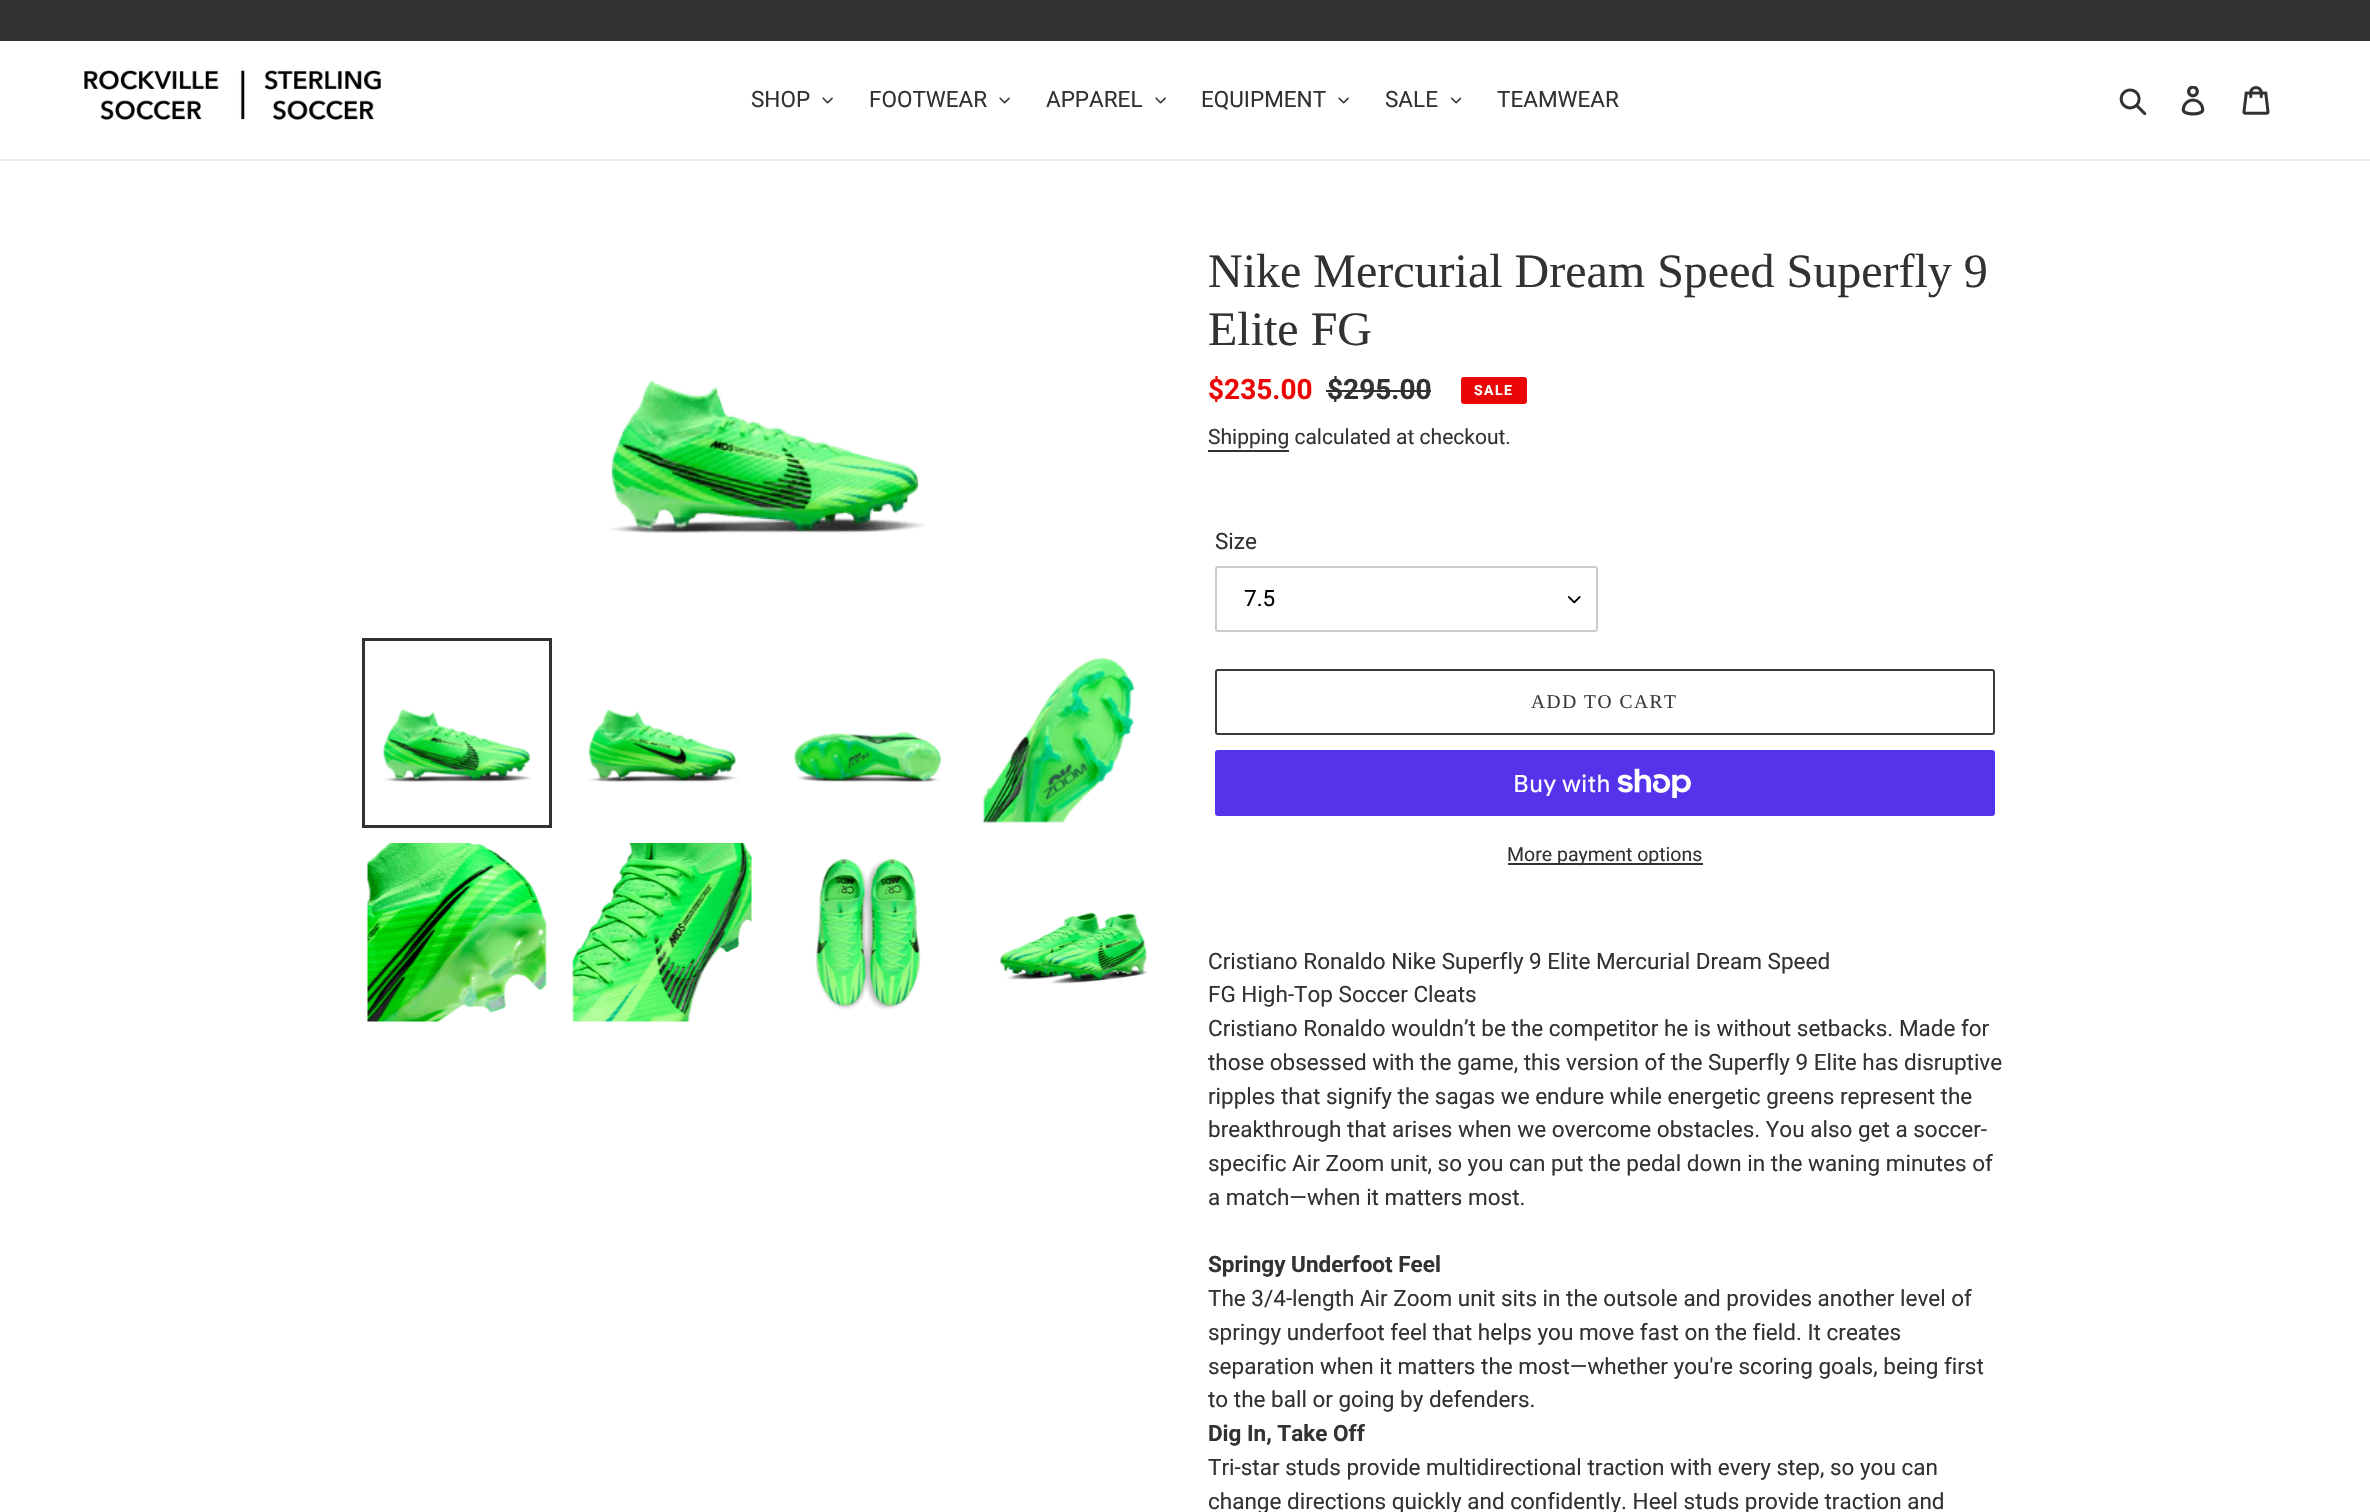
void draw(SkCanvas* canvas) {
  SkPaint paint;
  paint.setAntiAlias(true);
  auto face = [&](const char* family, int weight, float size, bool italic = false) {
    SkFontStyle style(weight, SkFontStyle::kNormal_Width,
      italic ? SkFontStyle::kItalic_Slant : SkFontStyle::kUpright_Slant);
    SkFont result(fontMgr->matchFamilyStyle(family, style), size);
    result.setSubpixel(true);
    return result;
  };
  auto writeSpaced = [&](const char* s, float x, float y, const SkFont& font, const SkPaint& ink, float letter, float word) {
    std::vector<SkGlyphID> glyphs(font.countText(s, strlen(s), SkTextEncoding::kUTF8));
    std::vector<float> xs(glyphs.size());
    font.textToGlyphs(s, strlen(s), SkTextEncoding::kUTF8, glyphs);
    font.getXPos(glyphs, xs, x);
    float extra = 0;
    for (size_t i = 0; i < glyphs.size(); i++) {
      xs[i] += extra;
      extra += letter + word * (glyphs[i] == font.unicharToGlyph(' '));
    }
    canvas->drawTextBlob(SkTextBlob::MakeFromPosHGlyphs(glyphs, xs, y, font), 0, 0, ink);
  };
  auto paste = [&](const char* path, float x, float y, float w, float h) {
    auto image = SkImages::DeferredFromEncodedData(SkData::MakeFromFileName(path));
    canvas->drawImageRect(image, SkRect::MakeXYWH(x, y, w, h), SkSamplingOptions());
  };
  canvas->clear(0xffffffff);
  paint.setColor(0xff333232);
  canvas->drawRect(SkRect::MakeXYWH(0, 0, 2370, 41), paint);
  paint.setColor(0xffebebeb);
  canvas->drawRect(SkRect::MakeXYWH(0, 159, 2370, 2), paint);
  paste("img/1.png", 84, 70, 297, 50);
  paste("img/2.png", 822, 97, 11, 7);
  paste("img/2.png", 999, 97, 11, 7);
  paste("img/2.png", 1155, 97, 11, 7);
  paste("img/2.png", 1338, 97, 11, 7);
  paste("img/3.png", 1451, 97, 10, 7);
  paste("img/4.png", 2119, 88, 28, 28);
  paste("img/5.png", 2181, 86, 24, 30);
  paste("img/6.png", 2242, 86, 28, 29);
  paste("img/7.png", 610, 380, 315, 153);
  paint.setStroke(true);
  paint.setStrokeWidth(3);
  paint.setColor(0xff333232);
  canvas->drawRect(SkRect::MakeXYWH(363.5f, 639.5f, 187, 187), paint);
  paste("img/8.png", 383, 708, 149, 74);
  paste("img/9.png", 588, 709, 150, 73);
  paste("img/10.png", 794, 731, 148, 51);
  paste("img/11.png", 983, 657, 152, 166);
  paste("img/12.png", 367, 843, 180, 179);
  paste("img/13.png", 572, 843, 180, 179);
  paste("img/14.png", 815, 858, 106, 152);
  paste("img/15.png", 999, 912, 149, 72);
  paint.setStroke(false);
  canvas->drawRect(SkRect::MakeXYWH(1326, 390, 105, 2), paint);
  paint.setColor(0xffea0606);
  canvas->drawRoundRect(SkRect::MakeXYWH(1462, 378, 64, 25), 2, 2, paint);
  paint.setStroke(true);
  paint.setStrokeWidth(2);
  canvas->drawRoundRect(SkRect::MakeXYWH(1462, 378, 64, 25), 2, 2, paint);
  paint.setStroke(false);
  paint.setColor(0xff333232);
  canvas->drawRect(SkRect::MakeXYWH(1208, 450, 81, 2), paint);
  paste("img/16.png", 1568, 596, 13, 8);
  paint.setStroke(true);
  paint.setColor(0xffcccccc);
  canvas->drawRoundRect(SkRect::MakeXYWH(1216, 567, 381, 64), 2, 2, paint);
  paint.setColor(0xff3a3a3a);
  canvas->drawRoundRect(SkRect::MakeXYWH(1216, 670, 778, 64), 2, 2, paint);
  paint.setStroke(false);
  paint.setColor(0xff5433eb);
  canvas->drawRoundRect(SkRect::MakeXYWH(1215, 750, 780, 66), 3, 3, paint);
  paste("img/17.png", 1617, 768, 74, 30);
  paint.setColor(0xff333232);
  canvas->drawRect(SkRect::MakeXYWH(1508, 863, 195, 2), paint);
  auto f0 = face("Roboto", 400, 22.5f);
  {
    const struct { const char* s; float x, y; } items[] = {
      {"SHOP", 751, 107},
      {"FOOTWEAR", 869, 107},
      {"APPAREL", 1046, 107},
      {"EQUIPMENT", 1201, 107},
      {"SALE", 1385, 107},
      {"TEAMWEAR", 1497, 107},
    };
    for (auto [s, x, y] : items) {
      canvas->drawString(s, x, y, f0, paint);
    }
  }
  auto f1 = face("Liberation Serif", 400, 48);
  canvas->drawString("Nike Mercurial Dream Speed Superfly 9", 1208, 287, f1, paint);
  canvas->drawString("Elite FG", 1208, 345, f1, paint);
  auto f2 = face("Roboto", 700, 28);
  paint.setColor(0xffea0606);
  canvas->drawString("$235.00", 1208, 399, f2, paint);
  paint.setColor(0xff333232);
  canvas->drawString("$295.00", 1327, 399, f2, paint);
  auto f3 = face("Roboto", 700, 14);
  paint.setColor(0xffffffff);
  writeSpaced("SALE", 1474, 395, f3, paint, 1.5f, 0);
  auto f4 = face("Roboto", 400, 21);
  paint.setColor(0xff333232);
  canvas->drawString("Shipping calculated at checkout.", 1208, 444, f4, paint);
  canvas->drawString("Size", 1215, 549, f0, paint);
  paint.setColor(0xff000000);
  canvas->drawString("7.5", 1244, 606, f0, paint);
  auto f5 = face("Liberation Serif", 400, 19.5f);
  paint.setColor(0xff3a3a3a);
  writeSpaced("ADD TO CART", 1531, 708, f5, paint, 1.5f, 0);
  auto f6 = face("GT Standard", 400, 24);
  paint.setColor(0xffffffff);
  canvas->drawString("Buy with", 1513, 792, f6, paint);
  auto f7 = face("Roboto", 400, 19.5f);
  paint.setColor(0xff333232);
  canvas->drawString("More payment options", 1507, 861, f7, paint);
  {
    const struct { const char* s; float x, y; } items[] = {
      {"Cristiano Ronaldo Nike Superfly 9 Elite Mercurial Dream Speed", 1208, 969},
      {"FG High-Top Soccer Cleats", 1208, 1002},
      {"Cristiano Ronaldo wouldn’t be the competitor he is without setbacks. Made for", 1208, 1036},
      {"those obsessed with the game, this version of the Superfly 9 Elite has disruptive", 1208, 1070},
      {"ripples that signify the sagas we endure while energetic greens represent the", 1208, 1104},
      {"breakthrough that arises when we overcome obstacles. You also get a soccer-", 1208, 1137},
      {"specific Air Zoom unit, so you can put the pedal down in the waning minutes of", 1208, 1171},
      {"a match—when it matters most.", 1208, 1205},
    };
    for (auto [s, x, y] : items) {
      canvas->drawString(s, x, y, f0, paint);
    }
  }
  auto f8 = face("Roboto", 700, 22.5f);
  canvas->drawString("Springy Underfoot Feel", 1208, 1272, f8, paint);
  {
    const struct { const char* s; float x, y; } items[] = {
      {"The 3/4-length Air Zoom unit sits in the outsole and provides another level of", 1208, 1306},
      {"springy underfoot feel that helps you move fast on the field. It creates", 1208, 1340},
      {"separation when it matters the most—whether you're scoring goals, being first", 1208, 1374},
      {"to the ball or going by defenders.", 1208, 1407},
    };
    for (auto [s, x, y] : items) {
      canvas->drawString(s, x, y, f0, paint);
    }
  }
  canvas->drawString("Dig In, Take Off", 1208, 1441, f8, paint);
  canvas->drawString("Tri-star studs provide multidirectional traction with every step, so you can", 1208, 1475, f0, paint);
  canvas->drawString("change directions quickly and confidently. Heel studs provide traction and", 1208, 1509, f0, paint);
}
